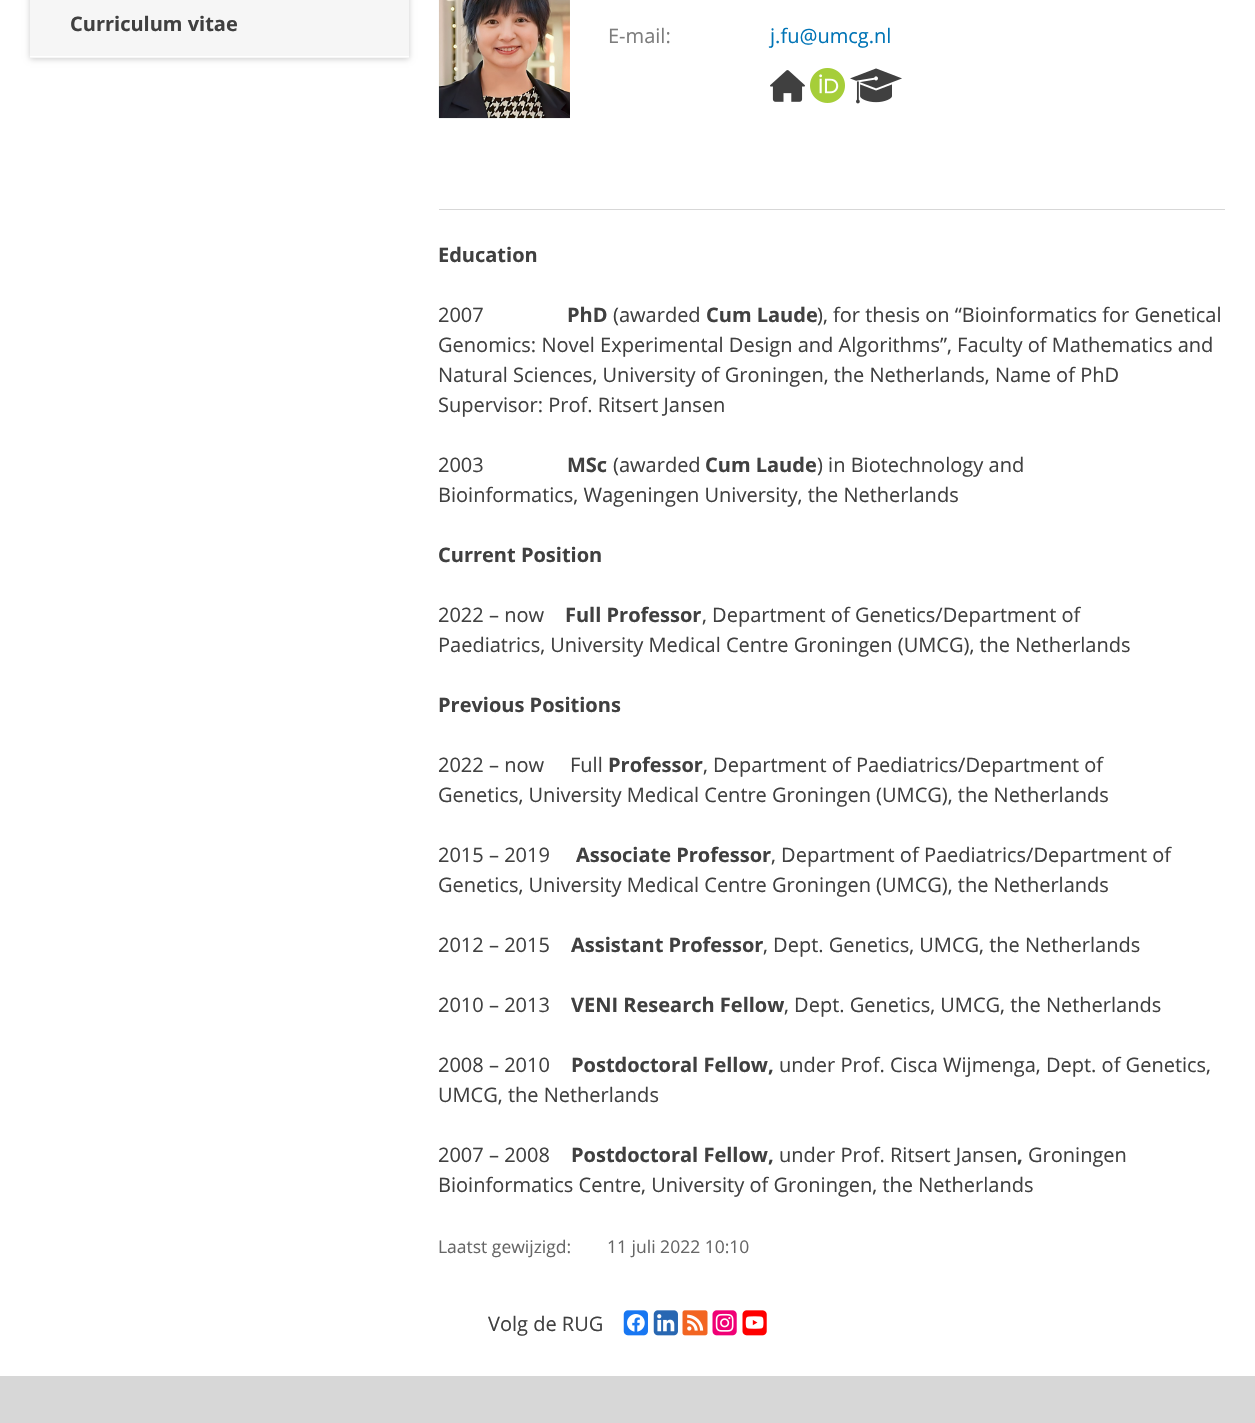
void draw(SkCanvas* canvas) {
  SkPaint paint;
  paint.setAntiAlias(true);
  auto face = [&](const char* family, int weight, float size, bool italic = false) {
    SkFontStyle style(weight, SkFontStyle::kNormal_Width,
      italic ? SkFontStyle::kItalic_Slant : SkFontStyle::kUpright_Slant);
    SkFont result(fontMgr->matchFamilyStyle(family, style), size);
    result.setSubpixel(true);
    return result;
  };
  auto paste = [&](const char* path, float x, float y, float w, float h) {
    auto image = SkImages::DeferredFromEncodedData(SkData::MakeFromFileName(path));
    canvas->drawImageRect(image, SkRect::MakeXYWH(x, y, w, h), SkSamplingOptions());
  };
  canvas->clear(0xffffffff);
  paint.setColor(0x33000000);
  paint.setMaskFilter(SkMaskFilter::MakeBlur(kNormal_SkBlurStyle, 3));
  canvas->drawRect(SkRect::MakeXYWH(30, -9, 379, 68), paint);
  paint.setMaskFilter(nullptr);
  paint.setColor(0xfff6f6f6);
  canvas->drawRect(SkRect::MakeXYWH(30, 0, 379, 58), paint);
  paint.setColor(0xffffffff);
  canvas->drawRect(SkRect::MakeXYWH(30, 56, 379, 1), paint);
  paste("img/1.png", 438, 0, 132, 119);
  paste("img/2.png", 770, 70, 35, 32);
  paste("img/3.png", 810, 68, 35, 35);
  paste("img/4.png", 850, 68, 52, 36);
  paint.setColor(0xffd7d7d7);
  canvas->drawRect(SkRect::MakeXYWH(439, 209, 786, 1), paint);
  paste("img/5.png", 623, 1310, 25, 26);
  paste("img/6.png", 653, 1310, 25, 26);
  paste("img/7.png", 682, 1310, 26, 26);
  paste("img/8.png", 712, 1310, 25, 26);
  paste("img/9.png", 742, 1310, 25, 26);
  canvas->drawRect(SkRect::MakeXYWH(0, 1376, 1255, 47), paint);
  auto f0 = face("Open Sans", 700, 20);
  paint.setColor(0xff404040);
  canvas->drawString("Curriculum vitae", 70, 31, f0, paint);
  auto f1 = face("Open Sans", 400, 20);
  paint.setColor(0xff7d7d7d);
  canvas->drawString("E-mail:", 608, 43, f1, paint);
  paint.setColor(0xff0074b6);
  canvas->drawString("j.fu@umcg.nl", 770, 43, f1, paint);
  paint.setColor(0xff404040);
  canvas->drawString("Education", 438, 262, f0, paint);
  canvas->drawString("2007", 438, 322, f1, paint);
  canvas->drawString("PhD", 567, 322, f0, paint);
  canvas->drawString("(awarded", 613, 322, f1, paint);
  canvas->drawString("Cum Laude", 706, 322, f0, paint);
  {
    const struct { const char* s; float x, y; } items[] = {
      {"), for thesis on “Bioinformatics for Genetical", 817, 322},
      {"Genomics: Novel Experimental Design and Algorithms”, Faculty of Mathematics and", 438, 352},
      {"Natural Sciences, University of Groningen, the Netherlands, Name of PhD", 438, 382},
      {"Supervisor: Prof. Ritsert Jansen", 438, 412},
      {"2003", 438, 472},
    };
    for (auto [s, x, y] : items) {
      canvas->drawString(s, x, y, f1, paint);
    }
  }
  canvas->drawString("MSc", 567, 472, f0, paint);
  canvas->drawString("(awarded", 613, 472, f1, paint);
  canvas->drawString("Cum Laude", 705, 472, f0, paint);
  canvas->drawString(") in Biotechnology and", 817, 472, f1, paint);
  canvas->drawString("Bioinformatics, Wageningen University, the Netherlands", 438, 502, f1, paint);
  canvas->drawString("Current Position", 438, 562, f0, paint);
  canvas->drawString("2022 – now", 438, 622, f1, paint);
  canvas->drawString("Full Professor", 565, 622, f0, paint);
  canvas->drawString(", Department of Genetics/Department of", 702, 622, f1, paint);
  canvas->drawString("Paediatrics, University Medical Centre Groningen (UMCG), the Netherlands", 438, 652, f1, paint);
  canvas->drawString("Previous Positions", 438, 712, f0, paint);
  canvas->drawString("2022 – now", 438, 772, f1, paint);
  canvas->drawString("Full", 570, 772, f1, paint);
  canvas->drawString("Professor", 608, 772, f0, paint);
  {
    const struct { const char* s; float x, y; } items[] = {
      {", Department of Paediatrics/Department of", 703, 772},
      {"Genetics, University Medical Centre Groningen (UMCG), the Netherlands", 438, 802},
      {"2015 – 2019", 438, 862},
    };
    for (auto [s, x, y] : items) {
      canvas->drawString(s, x, y, f1, paint);
    }
  }
  canvas->drawString("Associate Professor", 576, 862, f0, paint);
  {
    const struct { const char* s; float x, y; } items[] = {
      {", Department of Paediatrics/Department of", 771, 862},
      {"Genetics, University Medical Centre Groningen (UMCG), the Netherlands", 438, 892},
      {"2012 – 2015", 438, 952},
    };
    for (auto [s, x, y] : items) {
      canvas->drawString(s, x, y, f1, paint);
    }
  }
  canvas->drawString("Assistant Professor", 571, 952, f0, paint);
  canvas->drawString(", Dept. Genetics, UMCG, the Netherlands", 763, 952, f1, paint);
  canvas->drawString("2010 – 2013", 438, 1012, f1, paint);
  canvas->drawString("VENI Research Fellow", 571, 1012, f0, paint);
  canvas->drawString(", Dept. Genetics, UMCG, the Netherlands", 784, 1012, f1, paint);
  canvas->drawString("2008 – 2010", 438, 1072, f1, paint);
  canvas->drawString("Postdoctoral Fellow,", 571, 1072, f0, paint);
  {
    const struct { const char* s; float x, y; } items[] = {
      {"under Prof. Cisca Wijmenga, Dept. of Genetics,", 779, 1072},
      {"UMCG, the Netherlands", 438, 1102},
      {"2007 – 2008", 438, 1162},
    };
    for (auto [s, x, y] : items) {
      canvas->drawString(s, x, y, f1, paint);
    }
  }
  canvas->drawString("Postdoctoral Fellow,", 571, 1162, f0, paint);
  canvas->drawString("under Prof. Ritsert Jansen", 779, 1162, f1, paint);
  canvas->drawString(",", 1017, 1162, f0, paint);
  canvas->drawString("Groningen", 1028, 1162, f1, paint);
  canvas->drawString("Bioinformatics Centre, University of Groningen, the Netherlands", 438, 1192, f1, paint);
  auto f2 = face("Open Sans", 400, 17.5f);
  paint.setColor(0xff666666);
  canvas->drawString("Laatst gewijzigd:", 438, 1253, f2, paint);
  canvas->drawString("11 juli 2022 10:10", 607, 1253, f2, paint);
  paint.setColor(0xff404040);
  canvas->drawString("Volg de RUG", 488, 1331, f1, paint);
}
